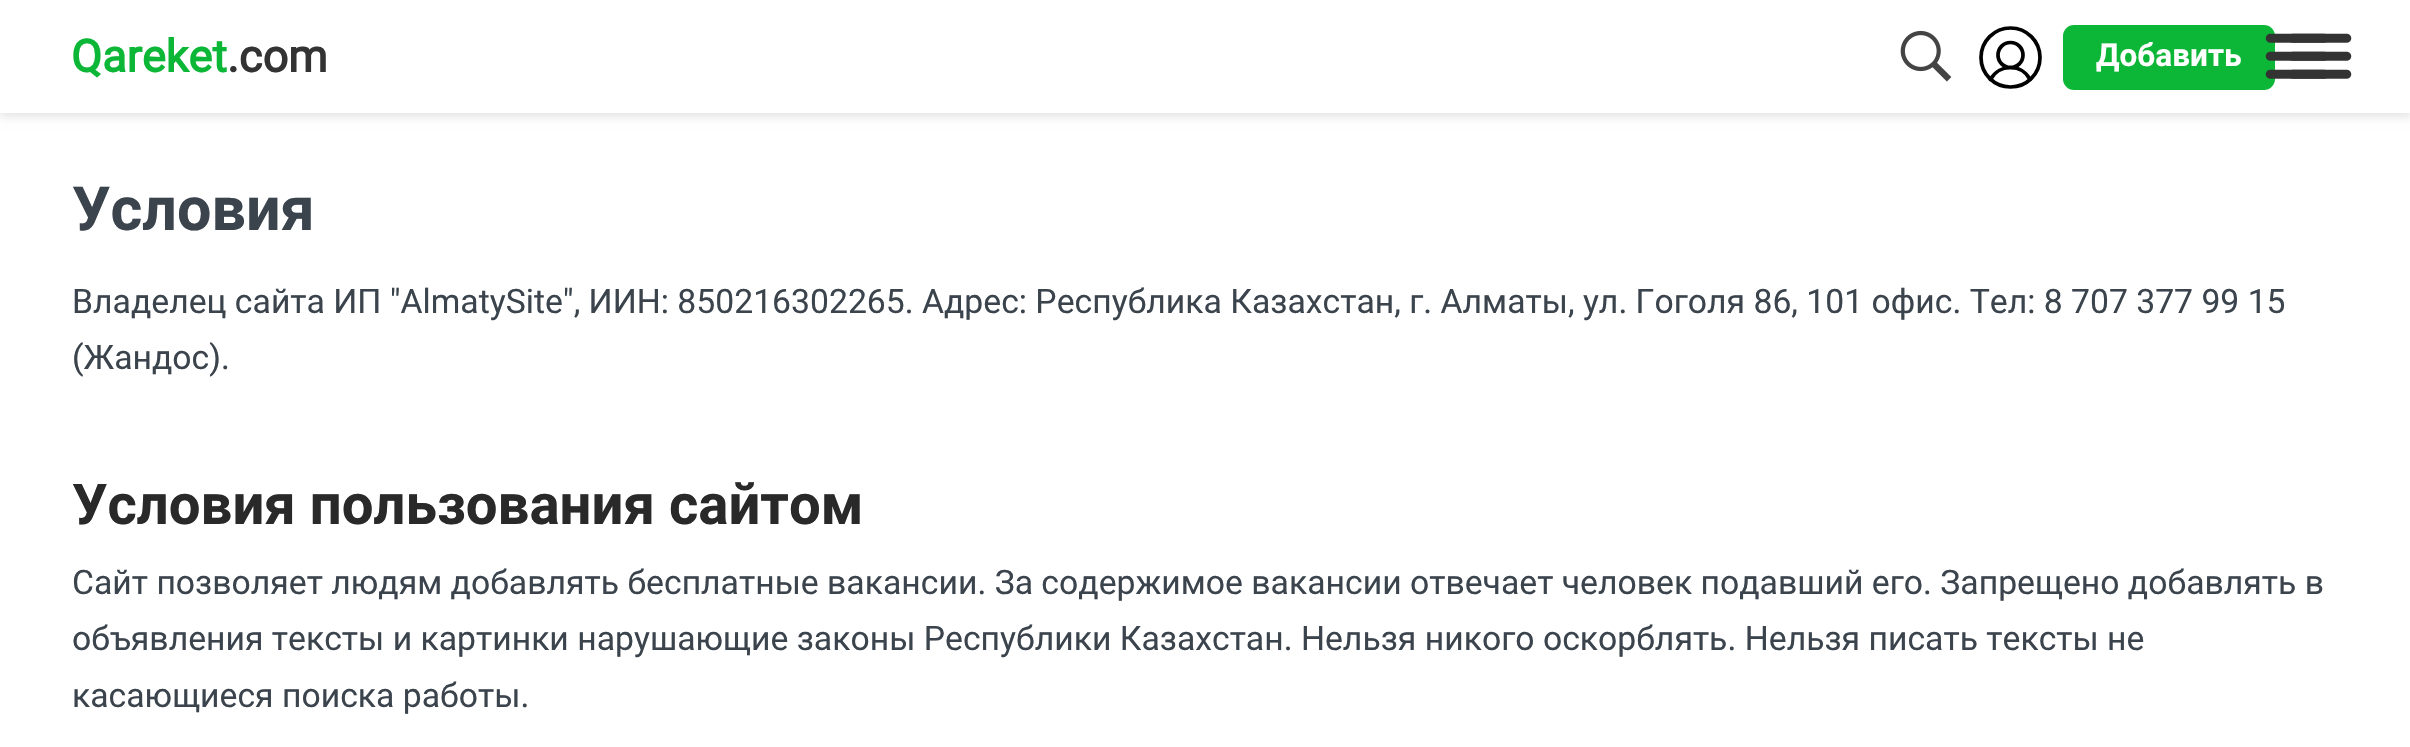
void draw(SkCanvas* canvas) {
  SkPaint paint;
  paint.setAntiAlias(true);
  auto face = [&](const char* family, int weight, float size, bool italic = false) {
    SkFontStyle style(weight, SkFontStyle::kNormal_Width,
      italic ? SkFontStyle::kItalic_Slant : SkFontStyle::kUpright_Slant);
    SkFont result(fontMgr->matchFamilyStyle(family, style), size);
    result.setSubpixel(true);
    return result;
  };
  auto paste = [&](const char* path, float x, float y, float w, float h) {
    auto image = SkImages::DeferredFromEncodedData(SkData::MakeFromFileName(path));
    canvas->drawImageRect(image, SkRect::MakeXYWH(x, y, w, h), SkSamplingOptions());
  };
  auto shape = [&](const char* data, bool evenOdd = false) {
    SkPath result = *SkParsePath::FromSVGString(data);
    if (evenOdd) result.setFillType(SkPathFillType::kEvenOdd);
    return result;
  };
  canvas->clear(0xffffffff);
  paint.setColor(0x1a000000);
  paint.setMaskFilter(SkMaskFilter::MakeBlur(kNormal_SkBlurStyle, 4.5f));
  canvas->drawRect(SkRect::MakeXYWH(0, 5, 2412, 112), paint);
  paint.setMaskFilter(nullptr);
  paint.setColor(0xffffffff);
  canvas->drawRect(SkRect::MakeXYWH(0, 0, 2410, 113), paint);
  paste("img/1.png", 1900, 30, 52, 52);
  paint.setStroke(true);
  paint.setStrokeWidth(3.7f);
  paint.setColor(0xff000000);
  canvas->drawCircle(2010.5f, 57.5f, 29.5f, paint);
  canvas->drawCircle(2010.5f, 55, 12.5f, paint);
  paint.setStrokeCap(SkPaint::kRound_Cap);
  paint.setStrokeJoin(SkPaint::kRound_Join);
  canvas->drawPath(shape("M1990.5 79.5C1999 63.5 2022 63.5 2030 79.5"), paint);
  paint.setStroke(false);
  paint.setColor(0xff0cb636);
  canvas->drawRoundRect(SkRect::MakeXYWH(2063, 25, 212, 65), 11, 11, paint);
  paste("img/2.png", 2265, 33, 62, 46);
  paste("img/3.png", 2290, 33, 62, 46);
  auto f0 = face("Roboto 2", 700, 45);
  canvas->drawString("Qareket", 71, 72, f0, paint);
  paint.setColor(0xff333333);
  canvas->drawString(".com", 227, 72, f0, paint);
  auto f1 = face("Roboto", 700, 31.5f);
  paint.setColor(0xffffffff);
  canvas->drawString("Добавить", 2096, 66, f1, paint);
  auto f2 = face("Roboto", 700, 61);
  paint.setColor(0xff3b444d);
  canvas->drawString("Условия", 72, 230, f2, paint);
  auto f3 = face("Roboto", 400, 33.75f);
  canvas->drawString("Владелец сайта ИП \"AlmatySite\", ИИН: 850216302265. Адрес: Республика Казахстан, г. Алматы, ул. Гоголя 86, 101 офис. Тел: 8 707 377 99 15", 72, 313, f3, paint);
  canvas->drawString("(Жандос).", 72, 369, f3, paint);
  auto f4 = face("Roboto", 700, 56.25f);
  paint.setColor(0xff292929);
  canvas->drawString("Условия пользования сайтом", 72, 524, f4, paint);
  paint.setColor(0xff3b444d);
  {
    const struct { const char* s; float x, y; } items[] = {
      {"Сайт позволяет людям добавлять бесплатные вакансии. За содержимое вакансии отвечает человек подавший его. Запрещено добавлять в", 72, 594},
      {"объявления тексты и картинки нарушающие законы Республики Казахстан. Нельзя никого оскорблять. Нельзя писать тексты не", 72, 650},
      {"касающиеся поиска работы.", 72, 707},
    };
    for (auto [s, x, y] : items) {
      canvas->drawString(s, x, y, f3, paint);
    }
  }
}
